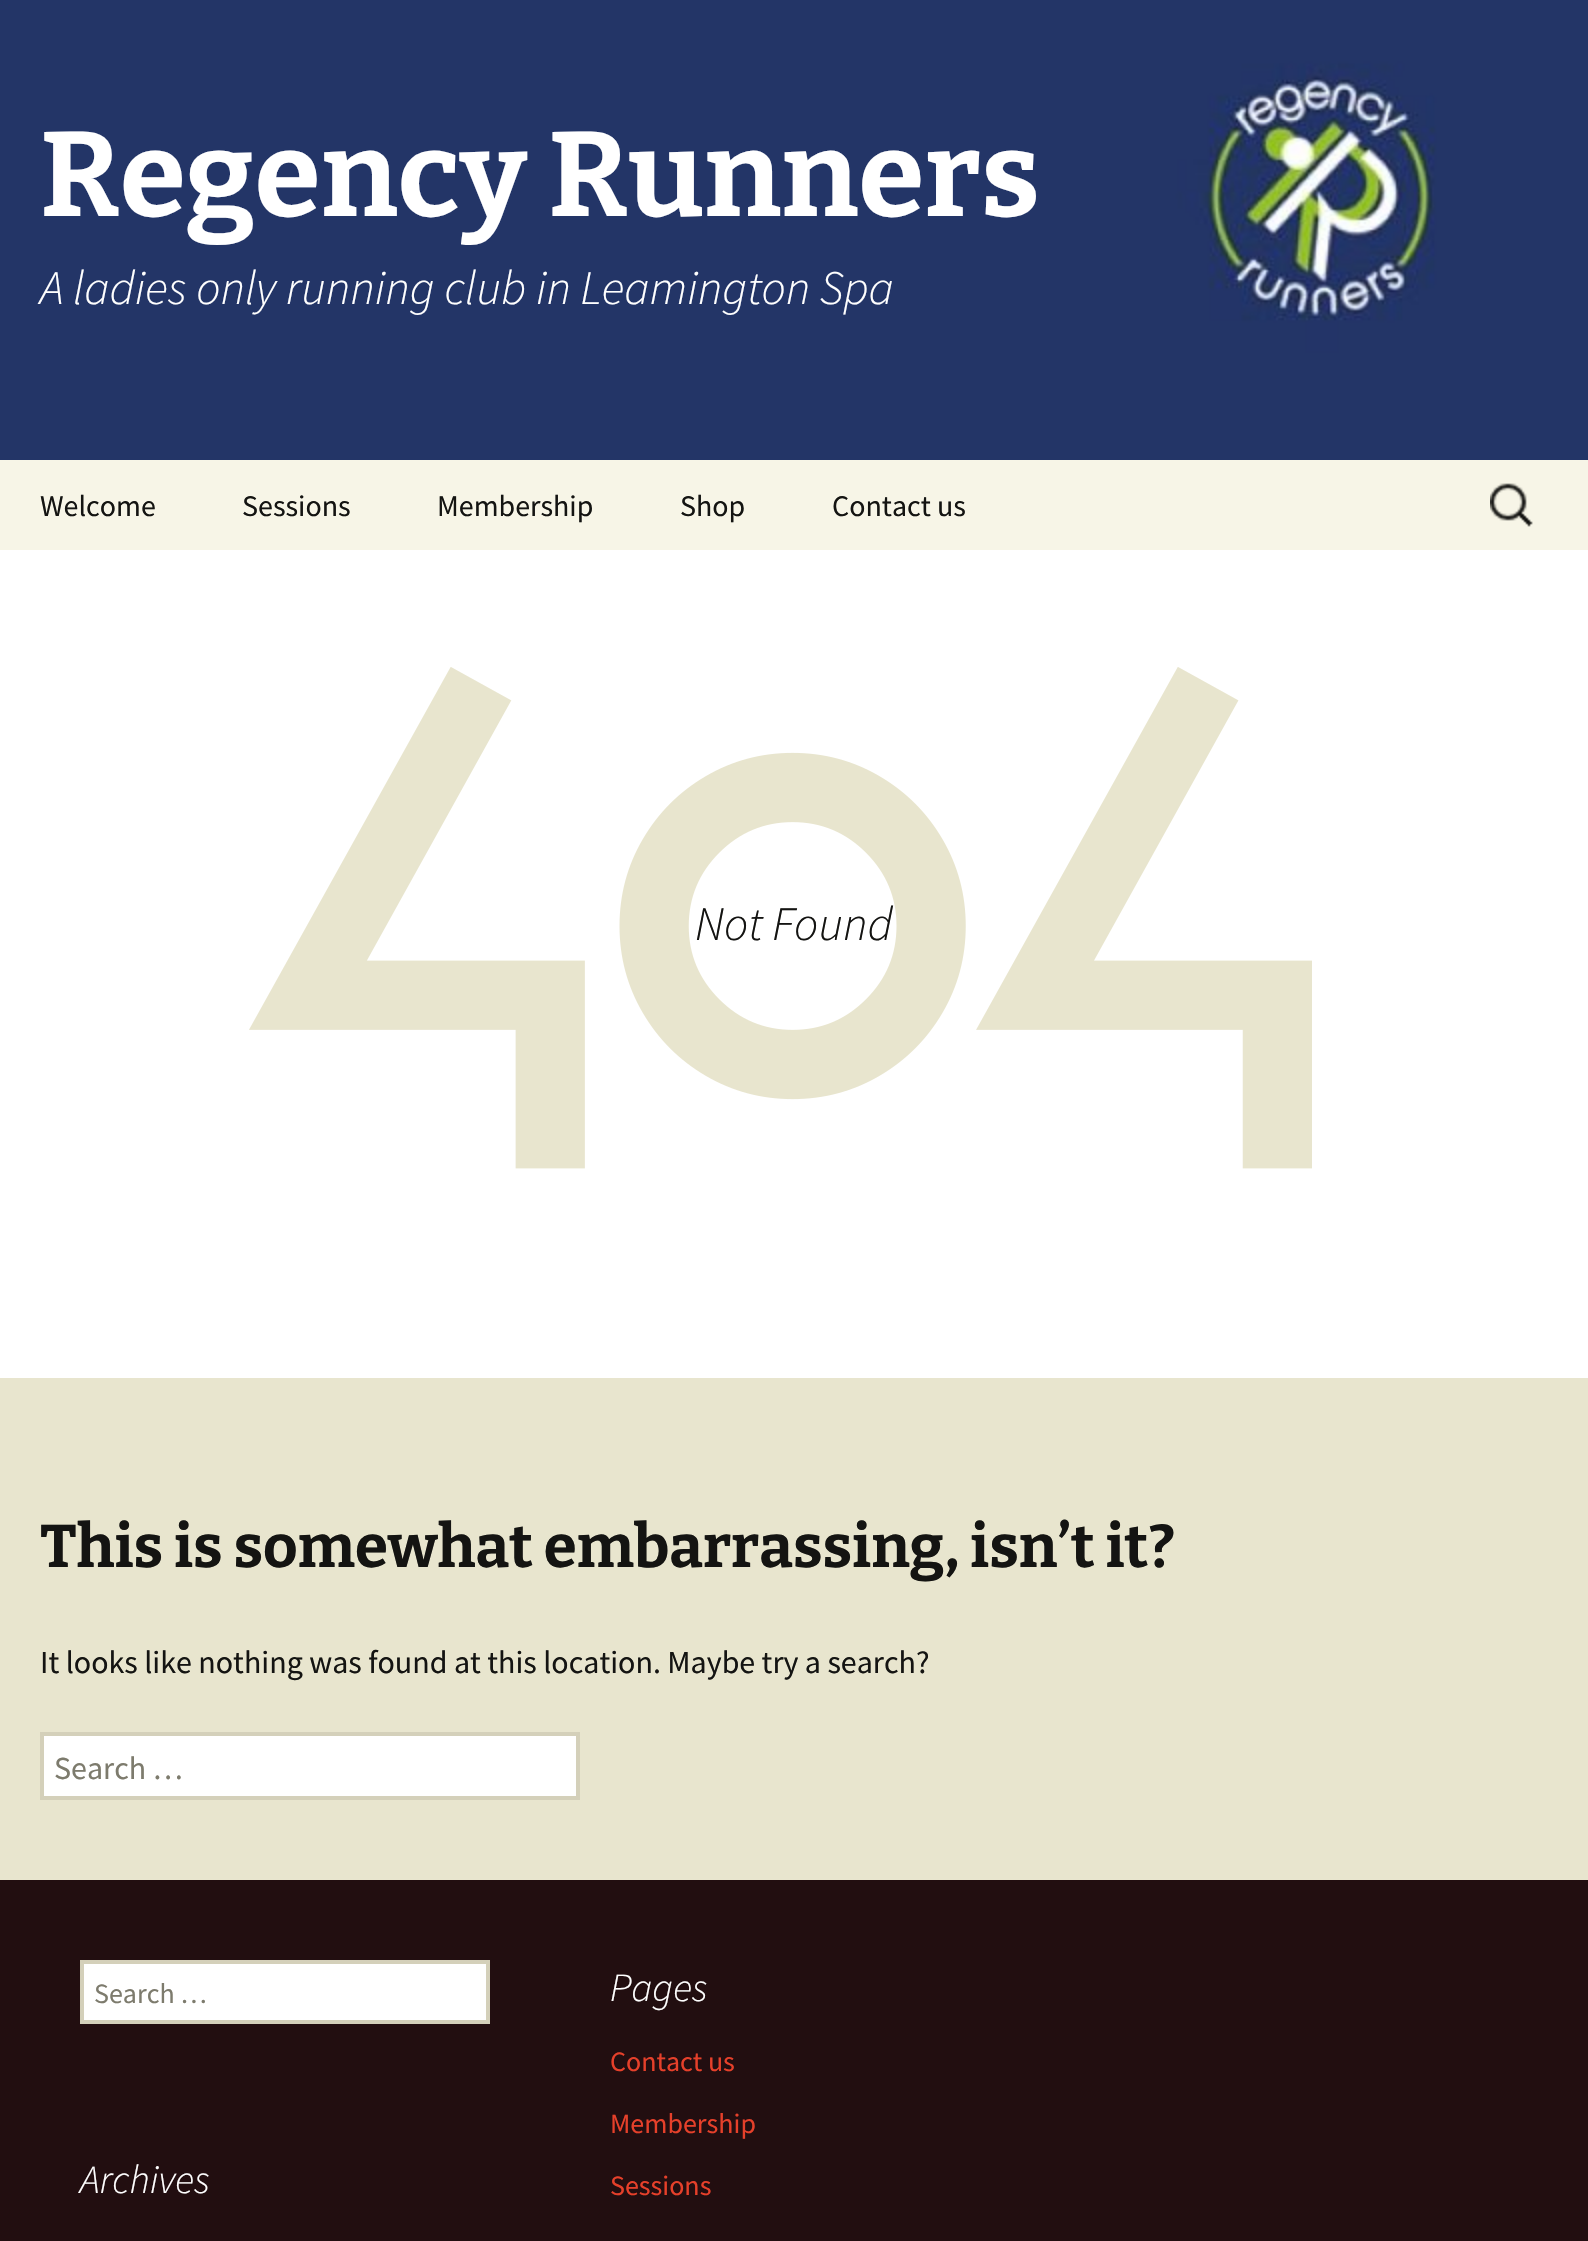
void draw(SkCanvas* canvas) {
  SkPaint paint;
  paint.setAntiAlias(true);
  auto face = [&](const char* family, int weight, float size, bool italic = false) {
    SkFontStyle style(weight, SkFontStyle::kNormal_Width,
      italic ? SkFontStyle::kItalic_Slant : SkFontStyle::kUpright_Slant);
    SkFont result(fontMgr->matchFamilyStyle(family, style), size);
    result.setSubpixel(true);
    return result;
  };
  auto paste = [&](const char* path, float x, float y, float w, float h) {
    auto image = SkImages::DeferredFromEncodedData(SkData::MakeFromFileName(path));
    canvas->drawImageRect(image, SkRect::MakeXYWH(x, y, w, h), SkSamplingOptions());
  };
  canvas->clear(0xffffffff);
  paste("img/1.png", 0, 0, 1588, 460);
  paint.setColor(0xfff7f5e7);
  canvas->drawRect(SkRect::MakeXYWH(0, 460, 1588, 90), paint);
  paste("img/2.png", 1490, 483, 43, 44);
  paint.setColor(0xffe8e5ce);
  canvas->drawRect(SkRect::MakeXYWH(0, 1378, 1588, 502), paint);
  paint.setColor(0xffffffff);
  canvas->drawRect(SkRect::MakeXYWH(42, 1734, 536, 64), paint);
  paint.setStroke(true);
  paint.setStrokeWidth(4);
  paint.setColor(0xffd4d0ba);
  canvas->drawRect(SkRect::MakeXYWH(42, 1734, 536, 64), paint);
  paint.setStroke(false);
  paint.setColor(0xff220e10);
  canvas->drawRect(SkRect::MakeXYWH(0, 1880, 1588, 361), paint);
  paint.setColor(0xffffffff);
  canvas->drawRect(SkRect::MakeXYWH(82, 1962, 406, 60), paint);
  paint.setStroke(true);
  paint.setColor(0xffd4d0ba);
  canvas->drawRect(SkRect::MakeXYWH(82, 1962, 406, 60), paint);
  auto f0 = face("Bitter", 100, 120);
  paint.setStroke(false);
  paint.setColor(0xffffffff);
  canvas->drawString("Regency Runners", 40, 216, f0, paint);
  auto f1 = face("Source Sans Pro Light", 300, 48, true);
  canvas->drawString("A ladies only running club in Leamington Spa", 40, 304, f1, paint);
  auto f2 = face("Source Sans Pro", 400, 30);
  paint.setColor(0xff141412);
  {
    const struct { const char* s; float x, y; } items[] = {
      {"Welcome", 40, 516},
      {"Sessions", 242, 516},
      {"Membership", 437, 516},
      {"Shop", 680, 516},
      {"Contact us", 832, 516},
    };
    for (auto [s, x, y] : items) {
      canvas->drawString(s, x, y, f2, paint);
    }
  }
  canvas->drawString("Not Found", 695, 940, f1, paint);
  paste("img/3.png", 249, 667, 1063, 502);
  auto f3 = face("Bitter", 100, 60);
  canvas->drawString("This is somewhat embarrassing, isn’t it?", 40, 1567, f3, paint);
  auto f4 = face("Source Sans Pro", 400, 32);
  canvas->drawString("It looks like nothing was found at this location. Maybe try a search?", 40, 1673, f4, paint);
  paint.setColor(0xff7d7b6d);
  canvas->drawString("Search …", 54, 1779, f4, paint);
  auto f5 = face("Source Sans Pro", 400, 28);
  canvas->drawString("Search …", 94, 2003, f5, paint);
  auto f6 = face("Source Sans Pro Light", 300, 40, true);
  paint.setColor(0xffffffff);
  canvas->drawString("Pages", 610, 2001, f6, paint);
  paint.setColor(0xffe6402a);
  {
    const struct { const char* s; float x, y; } items[] = {
      {"Contact us", 610, 2071},
      {"Membership", 610, 2133},
      {"Sessions", 610, 2195},
    };
    for (auto [s, x, y] : items) {
      canvas->drawString(s, x, y, f5, paint);
    }
  }
  paint.setColor(0xffffffff);
  canvas->drawString("Archives", 80, 2193, f6, paint);
}
